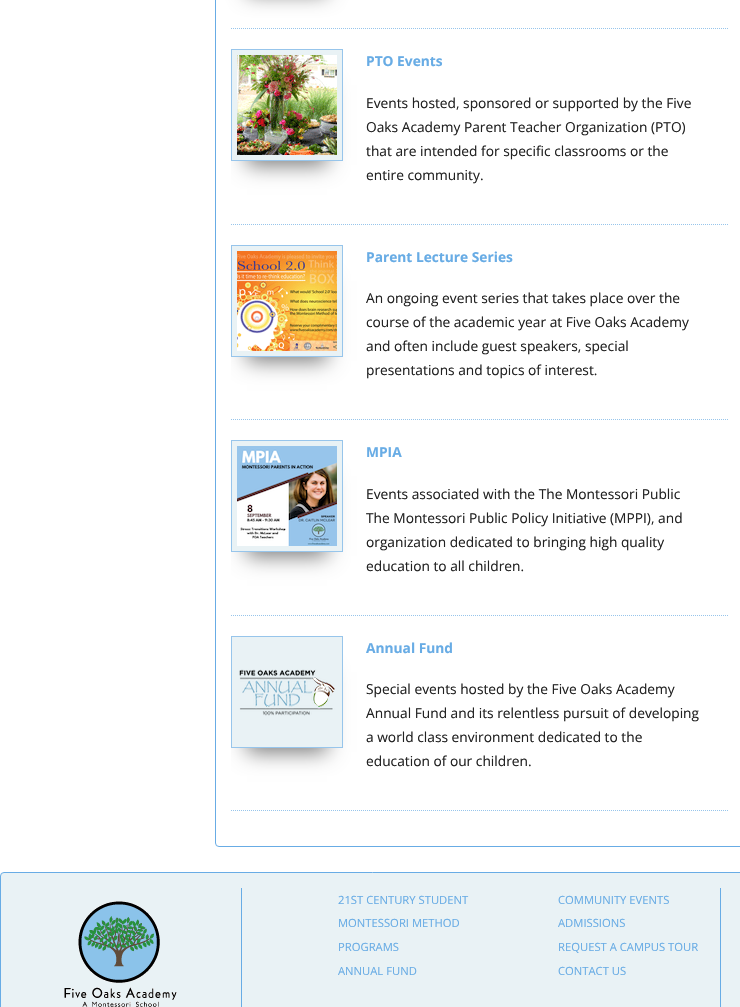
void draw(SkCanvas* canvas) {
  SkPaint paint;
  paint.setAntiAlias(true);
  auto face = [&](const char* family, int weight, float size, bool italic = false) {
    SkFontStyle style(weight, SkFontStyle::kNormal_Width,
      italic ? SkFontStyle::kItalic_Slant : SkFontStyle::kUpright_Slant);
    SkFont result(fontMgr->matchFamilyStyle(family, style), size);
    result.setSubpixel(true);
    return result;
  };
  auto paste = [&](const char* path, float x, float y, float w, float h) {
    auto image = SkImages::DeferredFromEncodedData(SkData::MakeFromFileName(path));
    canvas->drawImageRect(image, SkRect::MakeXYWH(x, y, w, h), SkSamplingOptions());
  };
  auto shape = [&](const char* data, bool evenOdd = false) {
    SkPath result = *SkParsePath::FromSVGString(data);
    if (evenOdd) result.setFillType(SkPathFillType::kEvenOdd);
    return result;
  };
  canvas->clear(0xffffffff);
  paint.setStroke(true);
  paint.setStrokeWidth(1);
  paint.setColor(0xff68ace5);
  canvas->drawRoundRect(SkRect::MakeXYWH(215.5f, -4.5f, 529, 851), 3.5f, 3.5f, paint);
  paint.setColor(0xff97c5eb);
  paint.setPathEffect(SkDashPathEffect::Make({{1, 1}}, 0));
  canvas->drawPath(shape("M231 28.5H729"), paint);
  paint.setPathEffect(nullptr);
  paint.setStroke(false);
  paint.setColor(0xff777777);
  paint.setMaskFilter(SkMaskFilter::MakeBlur(kNormal_SkBlurStyle, 10));
  canvas->drawRect(SkRect::MakeXYWH(247, -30, 80, 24), paint);
  paint.setMaskFilter(nullptr);
  paint.setStroke(true);
  paint.setColor(0xff97c5eb);
  paint.setPathEffect(SkDashPathEffect::Make({{1, 1}}, 0));
  canvas->drawPath(shape("M231 224.5H729"), paint);
  paint.setPathEffect(nullptr);
  canvas->save();
  canvas->clipRect(SkRect::MakeXYWH(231, 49, 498, 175));
  paint.setStroke(false);
  paint.setColor(0xff777777);
  paint.setMaskFilter(SkMaskFilter::MakeBlur(kNormal_SkBlurStyle, 10));
  canvas->drawRect(SkRect::MakeXYWH(247, 85, 80, 80), paint);
  paint.setMaskFilter(nullptr);
  canvas->restore();
  paint.setColor(0xffe9f2f5);
  canvas->drawRect(SkRect::MakeXYWH(231.5f, 49.5f, 111, 111), paint);
  paint.setStroke(true);
  paint.setColor(0xff97c5eb);
  canvas->drawRect(SkRect::MakeXYWH(231.5f, 49.5f, 111, 111), paint);
  paste("img/1.png", 237, 55, 100, 100);
  paint.setPathEffect(SkDashPathEffect::Make({{1, 1}}, 0));
  canvas->drawPath(shape("M231 419.5H729"), paint);
  paint.setPathEffect(nullptr);
  canvas->save();
  canvas->clipRect(SkRect::MakeXYWH(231, 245, 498, 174));
  paint.setStroke(false);
  paint.setColor(0xff777777);
  paint.setMaskFilter(SkMaskFilter::MakeBlur(kNormal_SkBlurStyle, 10));
  canvas->drawRect(SkRect::MakeXYWH(247, 281, 80, 80), paint);
  paint.setMaskFilter(nullptr);
  canvas->restore();
  paint.setColor(0xffe9f2f5);
  canvas->drawRect(SkRect::MakeXYWH(231.5f, 245.5f, 111, 111), paint);
  paint.setStroke(true);
  paint.setColor(0xff97c5eb);
  canvas->drawRect(SkRect::MakeXYWH(231.5f, 245.5f, 111, 111), paint);
  paste("img/2.png", 237, 251, 100, 100);
  paint.setPathEffect(SkDashPathEffect::Make({{1, 1}}, 0));
  canvas->drawPath(shape("M231 615.5H729"), paint);
  paint.setPathEffect(nullptr);
  canvas->save();
  canvas->clipRect(SkRect::MakeXYWH(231, 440, 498, 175));
  paint.setStroke(false);
  paint.setColor(0xff777777);
  paint.setMaskFilter(SkMaskFilter::MakeBlur(kNormal_SkBlurStyle, 10));
  canvas->drawRect(SkRect::MakeXYWH(247, 476, 80, 80), paint);
  paint.setMaskFilter(nullptr);
  canvas->restore();
  paint.setColor(0xffe9f2f5);
  canvas->drawRect(SkRect::MakeXYWH(231.5f, 440.5f, 111, 111), paint);
  paint.setStroke(true);
  paint.setColor(0xff97c5eb);
  canvas->drawRect(SkRect::MakeXYWH(231.5f, 440.5f, 111, 111), paint);
  paste("img/3.png", 237, 446, 100, 100);
  paint.setPathEffect(SkDashPathEffect::Make({{1, 1}}, 0));
  canvas->drawPath(shape("M231 810.5H729"), paint);
  paint.setPathEffect(nullptr);
  canvas->save();
  canvas->clipRect(SkRect::MakeXYWH(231, 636, 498, 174));
  paint.setStroke(false);
  paint.setColor(0xff777777);
  paint.setMaskFilter(SkMaskFilter::MakeBlur(kNormal_SkBlurStyle, 10));
  canvas->drawRect(SkRect::MakeXYWH(247, 672, 80, 80), paint);
  paint.setMaskFilter(nullptr);
  canvas->restore();
  paint.setColor(0xffe9f2f5);
  canvas->drawRect(SkRect::MakeXYWH(231.5f, 636.5f, 111, 111), paint);
  paint.setStroke(true);
  paint.setColor(0xff97c5eb);
  canvas->drawRect(SkRect::MakeXYWH(231.5f, 636.5f, 111, 111), paint);
  paste("img/4.png", 239, 669, 96, 47);
  paint.setStroke(false);
  paint.setColor(0xffe9f2f5);
  canvas->drawRoundRect(SkRect::MakeXYWH(0.5f, 872.5f, 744, 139), 3.5f, 3.5f, paint);
  paint.setStroke(true);
  paint.setColor(0xff68ace5);
  canvas->drawRoundRect(SkRect::MakeXYWH(0.5f, 872.5f, 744, 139), 3.5f, 3.5f, paint);
  paint.setStroke(false);
  canvas->drawRect(SkRect::MakeXYWH(720, 888, 1, 119), paint);
  canvas->drawRect(SkRect::MakeXYWH(241, 888, 1, 119), paint);
  paste("img/5.png", 64, 901, 113, 106);
  auto f0 = face("Open Sans", 700, 13.75f);
  canvas->drawString("PTO Events", 366, 66, f0, paint);
  auto f1 = face("Open Sans", 400, 13.75f);
  paint.setColor(0xff222222);
  {
    const struct { const char* s; float x, y; } items[] = {
      {"Events hosted, sponsored or supported by the Five", 366, 108},
      {"Oaks Academy Parent Teacher Organization (PTO)", 366, 132},
      {"that are intended for specific classrooms or the", 366, 156},
      {"entire community.", 366, 180},
    };
    for (auto [s, x, y] : items) {
      canvas->drawString(s, x, y, f1, paint);
    }
  }
  paint.setColor(0xff68ace5);
  canvas->drawString("Parent Lecture Series", 366, 262, f0, paint);
  paint.setColor(0xff222222);
  {
    const struct { const char* s; float x, y; } items[] = {
      {"An ongoing event series that takes place over the", 366, 303},
      {"course of the academic year at Five Oaks Academy", 366, 327},
      {"and often include guest speakers, special", 366, 351},
      {"presentations and topics of interest.", 366, 375},
    };
    for (auto [s, x, y] : items) {
      canvas->drawString(s, x, y, f1, paint);
    }
  }
  paint.setColor(0xff68ace5);
  canvas->drawString("MPIA", 366, 457, f0, paint);
  paint.setColor(0xff222222);
  {
    const struct { const char* s; float x, y; } items[] = {
      {"Events associated with the The Montessori Public", 366, 499},
      {"The Montessori Public Policy Initiative (MPPI), and", 366, 523},
      {"organization dedicated to bringing high quality", 366, 547},
      {"education to all children.", 366, 571},
    };
    for (auto [s, x, y] : items) {
      canvas->drawString(s, x, y, f1, paint);
    }
  }
  paint.setColor(0xff68ace5);
  canvas->drawString("Annual Fund", 366, 653, f0, paint);
  paint.setColor(0xff222222);
  {
    const struct { const char* s; float x, y; } items[] = {
      {"Special events hosted by the Five Oaks Academy", 366, 694},
      {"Annual Fund and its relentless pursuit of developing", 366, 718},
      {"a world class environment dedicated to the", 366, 742},
      {"education of our children.", 366, 766},
    };
    for (auto [s, x, y] : items) {
      canvas->drawString(s, x, y, f1, paint);
    }
  }
  auto f2 = face("Open Sans", 400, 11.25f);
  paint.setColor(0xff68ace5);
  {
    const struct { const char* s; float x, y; } items[] = {
      {"21ST CENTURY STUDENT", 338, 904},
      {"MONTESSORI METHOD", 338, 927},
      {"PROGRAMS", 338, 951},
      {"ANNUAL FUND", 338, 975},
      {"COMMUNITY EVENTS", 558, 904},
      {"ADMISSIONS", 558, 927},
      {"REQUEST A CAMPUS TOUR", 558, 951},
      {"CONTACT US", 558, 975},
    };
    for (auto [s, x, y] : items) {
      canvas->drawString(s, x, y, f2, paint);
    }
  }
}
